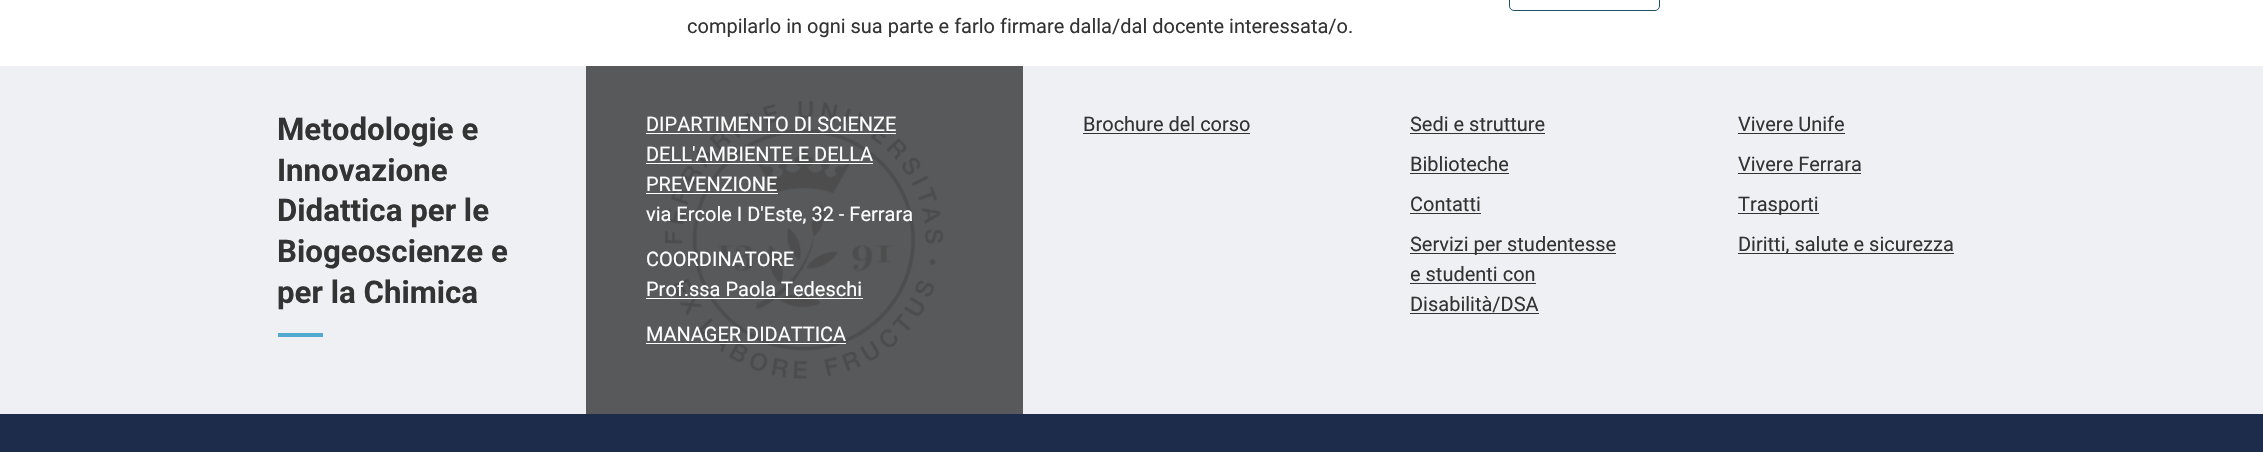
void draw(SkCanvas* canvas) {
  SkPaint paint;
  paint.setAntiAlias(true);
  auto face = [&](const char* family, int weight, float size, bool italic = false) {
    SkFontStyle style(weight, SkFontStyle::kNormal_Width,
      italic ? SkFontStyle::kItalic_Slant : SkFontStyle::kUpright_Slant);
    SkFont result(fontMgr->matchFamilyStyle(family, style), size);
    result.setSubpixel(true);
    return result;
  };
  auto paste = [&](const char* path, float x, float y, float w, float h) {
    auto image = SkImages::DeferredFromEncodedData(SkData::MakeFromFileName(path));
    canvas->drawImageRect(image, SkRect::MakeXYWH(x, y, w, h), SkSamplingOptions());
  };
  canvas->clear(0xffffffff);
  paint.setStroke(true);
  paint.setStrokeWidth(1);
  paint.setColor(0xff1d5268);
  canvas->drawRoundRect(SkRect::MakeXYWH(1509.5f, -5.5f, 150, 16), 4.5f, 4.5f, paint);
  paint.setStroke(false);
  {
    const struct { float x, y, w, h; SkColor color; } items[] = {
      {0, 66, 2263, 348, 0xffeef0f4},
      {278, 333, 45, 4, 0xff50a9ce},
      {586, 66, 437, 348, 0xff58595a},
    };
    for (auto [x, y, w, h, color] : items) {
      paint.setColor(color);
      canvas->drawRect(SkRect::MakeXYWH(x, y, w, h), paint);
    }
  }
  paste("img/1.png", 665, 101, 279, 278);
  {
    const struct { float x, y, w, h; SkColor color; } items[] = {
      {646, 133, 250, 1, 0xffffffff},
      {646, 163, 227, 1, 0xffffffff},
      {646, 193, 132, 1, 0xffffffff},
      {646, 298, 217, 1, 0xffffffff},
      {646, 343, 200, 1, 0xffffffff},
      {1083, 133, 167, 1, 0xff333333},
      {1410, 133, 135, 1, 0xff333333},
      {1410, 173, 99, 1, 0xff333333},
      {1410, 213, 71, 1, 0xff333333},
      {1410, 253, 206, 1, 0xff333333},
      {1410, 283, 126, 1, 0xff333333},
      {1410, 313, 129, 1, 0xff333333},
      {1738, 133, 107, 1, 0xff333333},
      {1738, 173, 123, 1, 0xff333333},
      {1738, 213, 81, 1, 0xff333333},
      {1738, 253, 216, 1, 0xff333333},
      {0, 414, 2263, 38, 0xff1c2c4a},
    };
    for (auto [x, y, w, h, color] : items) {
      paint.setColor(color);
      canvas->drawRect(SkRect::MakeXYWH(x, y, w, h), paint);
    }
  }
  auto f0 = face("Roboto", 400, 20);
  paint.setColor(0xff333333);
  canvas->drawString("compilarlo in ogni sua parte e farlo firmare dalla/dal docente interessata/o.", 687, 33, f0, paint);
  auto f1 = face("Roboto", 700, 31.25f);
  {
    const struct { const char* s; float x, y; } items[] = {
      {"Metodologie e", 277, 140},
      {"Innovazione", 277, 181},
      {"Didattica per le", 277, 221},
      {"Biogeoscienze e", 277, 262},
      {"per la Chimica", 277, 303},
    };
    for (auto [s, x, y] : items) {
      canvas->drawString(s, x, y, f1, paint);
    }
  }
  paint.setColor(0xffffffff);
  {
    const struct { const char* s; float x, y; } items[] = {
      {"DIPARTIMENTO DI SCIENZE", 646, 131},
      {"DELL'AMBIENTE E DELLA", 646, 161},
      {"PREVENZIONE", 646, 191},
      {"via Ercole I D'Este, 32 - Ferrara", 646, 221},
      {"COORDINATORE", 646, 266},
      {"Prof.ssa Paola Tedeschi", 646, 296},
      {"MANAGER DIDATTICA", 646, 341},
    };
    for (auto [s, x, y] : items) {
      canvas->drawString(s, x, y, f0, paint);
    }
  }
  paint.setColor(0xff333333);
  {
    const struct { const char* s; float x, y; } items[] = {
      {"Brochure del corso", 1083, 131},
      {"Sedi e strutture", 1410, 131},
      {"Biblioteche", 1410, 171},
      {"Contatti", 1410, 211},
      {"Servizi per studentesse", 1410, 251},
      {"e studenti con", 1410, 281},
      {"Disabilità/DSA", 1410, 311},
      {"Vivere Unife", 1738, 131},
      {"Vivere Ferrara", 1738, 171},
      {"Trasporti", 1738, 211},
      {"Diritti, salute e sicurezza", 1738, 251},
    };
    for (auto [s, x, y] : items) {
      canvas->drawString(s, x, y, f0, paint);
    }
  }
}
